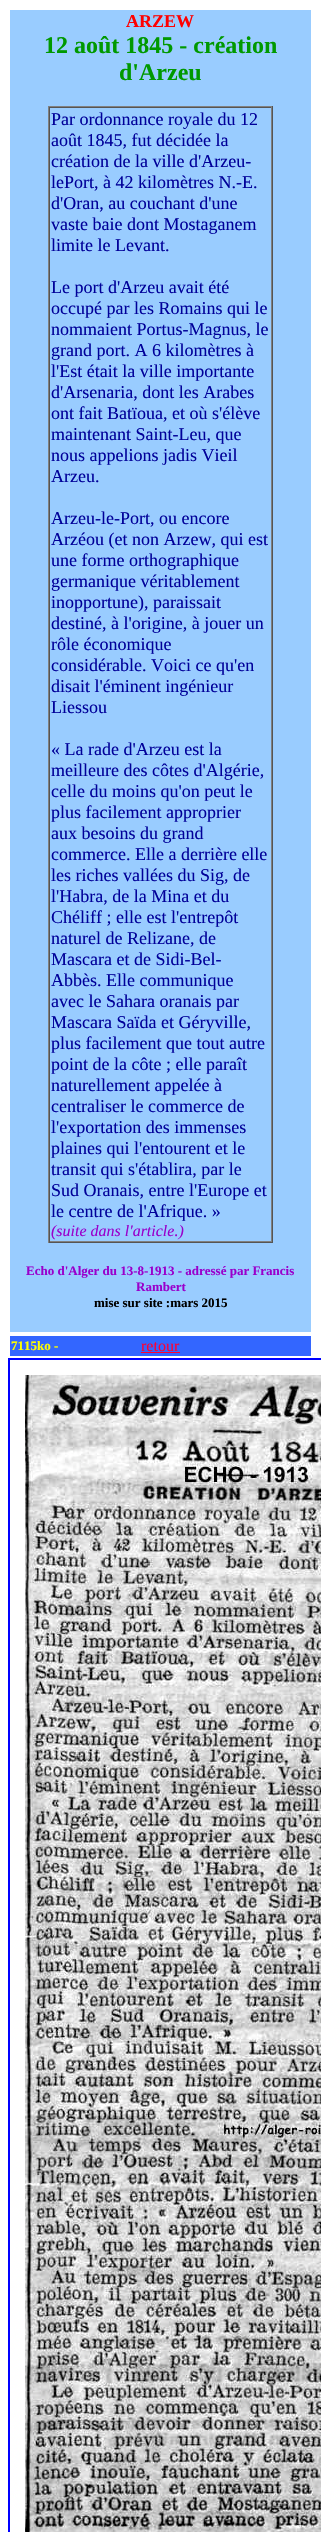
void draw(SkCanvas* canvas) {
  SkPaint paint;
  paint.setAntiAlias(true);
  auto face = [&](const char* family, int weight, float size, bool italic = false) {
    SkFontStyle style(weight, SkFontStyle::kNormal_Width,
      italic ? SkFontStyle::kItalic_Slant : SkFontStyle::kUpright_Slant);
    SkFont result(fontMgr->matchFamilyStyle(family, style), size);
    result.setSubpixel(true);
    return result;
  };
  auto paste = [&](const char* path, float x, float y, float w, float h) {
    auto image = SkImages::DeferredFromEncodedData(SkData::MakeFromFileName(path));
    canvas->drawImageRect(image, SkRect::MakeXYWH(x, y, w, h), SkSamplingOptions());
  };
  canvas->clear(0xffffffff);
  {
    const struct { float x, y, w, h; SkColor color; } items[] = {
      {10, 10, 301, 1322, 0xff99ccff},
      {48, 106, 225, 1, 0xff808080},
      {272, 106, 1, 1137, 0xff555555},
      {48, 1242, 225, 1, 0xff555555},
      {48, 106, 1, 1137, 0xff808080},
      {49, 107, 223, 1, 0xff555555},
      {271, 107, 1, 1135, 0xff808080},
      {49, 1241, 223, 1, 0xff808080},
      {49, 107, 1, 1135, 0xff555555},
      {10, 1336, 301, 20, 0xff3366ff},
      {141, 1352, 39, 1, 0xffff0033},
    };
    for (auto [x, y, w, h, color] : items) {
      paint.setColor(color);
      canvas->drawRect(SkRect::MakeXYWH(x, y, w, h), paint);
    }
  }
  paint.setStroke(true);
  paint.setStrokeWidth(1);
  paint.setColor(0xff0000ff);
  canvas->drawRect(SkRect::MakeXYWH(8.5f, 1358.5f, 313, 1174), paint);
  canvas->drawRect(SkRect::MakeXYWH(9.5f, 1359.5f, 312, 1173), paint);
  paste("img/1.png", 25, 1375, 296, 1157);
  auto f0 = face("Liberation Serif", 700, 18);
  paint.setStroke(false);
  paint.setColor(0xffff0000);
  canvas->drawString("ARZEW", 126, 27, f0, paint);
  auto f1 = face("Liberation Serif", 700, 24);
  paint.setColor(0xff009900);
  canvas->drawString("12 août 1845 - création", 44, 53, f1, paint);
  canvas->drawString("d'Arzeu", 119, 80, f1, paint);
  auto f2 = face("Liberation Serif", 400, 18);
  paint.setColor(0xff000099);
  {
    const struct { const char* s; float x, y; } items[] = {
      {"Par ordonnance royale du 12", 51, 125},
      {"août 1845, fut décidée la", 51, 146},
      {"création de la ville d'Arzeu-", 51, 167},
      {"lePort, à 42 kilomètres N.-E.", 51, 188},
      {"d'Oran, au couchant d'une", 51, 209},
      {"vaste baie dont Mostaganem", 51, 230},
      {"limite le Levant.", 51, 251},
      {"Le port d'Arzeu avait été", 51, 293},
      {"occupé par les Romains qui le", 51, 314},
      {"nommaient Portus-Magnus, le", 51, 335},
      {"grand port. A 6 kilomètres à", 51, 356},
      {"l'Est était la ville importante", 51, 377},
      {"d'Arsenaria, dont les Arabes", 51, 398},
      {"ont fait Batïoua, et où s'élève", 51, 419},
      {"maintenant Saint-Leu, que", 51, 440},
      {"nous appelions jadis Vieil", 51, 461},
      {"Arzeu.", 51, 482},
      {"Arzeu-le-Port, ou encore", 51, 524},
      {"Arzéou (et non Arzew, qui est", 51, 545},
      {"une forme orthographique", 51, 566},
      {"germanique véritablement", 51, 587},
      {"inopportune), paraissait", 51, 608},
      {"destiné, à l'origine, à jouer un", 51, 629},
      {"rôle économique", 51, 650},
      {"considérable. Voici ce qu'en", 51, 671},
      {"disait l'éminent ingénieur", 51, 692},
      {"Liessou", 51, 713},
      {"« La rade d'Arzeu est la", 51, 755},
      {"meilleure des côtes d'Algérie,", 51, 776},
      {"celle du moins qu'on peut le", 51, 797},
      {"plus facilement approprier", 51, 818},
      {"aux besoins du grand", 51, 839},
      {"commerce. Elle a derrière elle", 51, 860},
      {"les riches vallées du Sig, de", 51, 881},
      {"l'Habra, de la Mina et du", 51, 902},
      {"Chéliff ; elle est l'entrepôt", 51, 923},
      {"naturel de Relizane, de", 51, 944},
      {"Mascara et de Sidi-Bel-", 51, 965},
      {"Abbès. Elle communique", 51, 986},
      {"avec le Sahara oranais par", 51, 1007},
      {"Mascara Saïda et Géryville,", 51, 1028},
      {"plus facilement que tout autre", 51, 1049},
      {"point de la côte ; elle paraît", 51, 1070},
      {"naturellement appelée à", 51, 1091},
      {"centraliser le commerce de", 51, 1112},
      {"l'exportation des immenses", 51, 1133},
      {"plaines qui l'entourent et le", 51, 1154},
      {"transit qui s'établira, par le", 51, 1175},
      {"Sud Oranais, entre l'Europe et", 51, 1196},
      {"le centre de l'Afrique. »", 51, 1217},
    };
    for (auto [s, x, y] : items) {
      canvas->drawString(s, x, y, f2, paint);
    }
  }
  auto f3 = face("Liberation Serif", 400, 16, true);
  paint.setColor(0xff9900cc);
  canvas->drawString("(suite dans l'article.)", 51, 1236, f3, paint);
  auto f4 = face("Liberation Serif", 700, 13);
  canvas->drawString("Echo d'Alger du 13-8-1913 - adressé par Francis", 26, 1275, f4, paint);
  canvas->drawString("Rambert", 136, 1291, f4, paint);
  paint.setColor(0xff000000);
  canvas->drawString("mise sur site :mars 2015", 94, 1307, f4, paint);
  paint.setColor(0xffffff00);
  canvas->drawString("7115ko -", 11, 1350, f4, paint);
  auto f5 = face("Liberation Serif", 400, 16);
  paint.setColor(0xffff0033);
  canvas->drawString("retour", 141, 1351, f5, paint);
}
